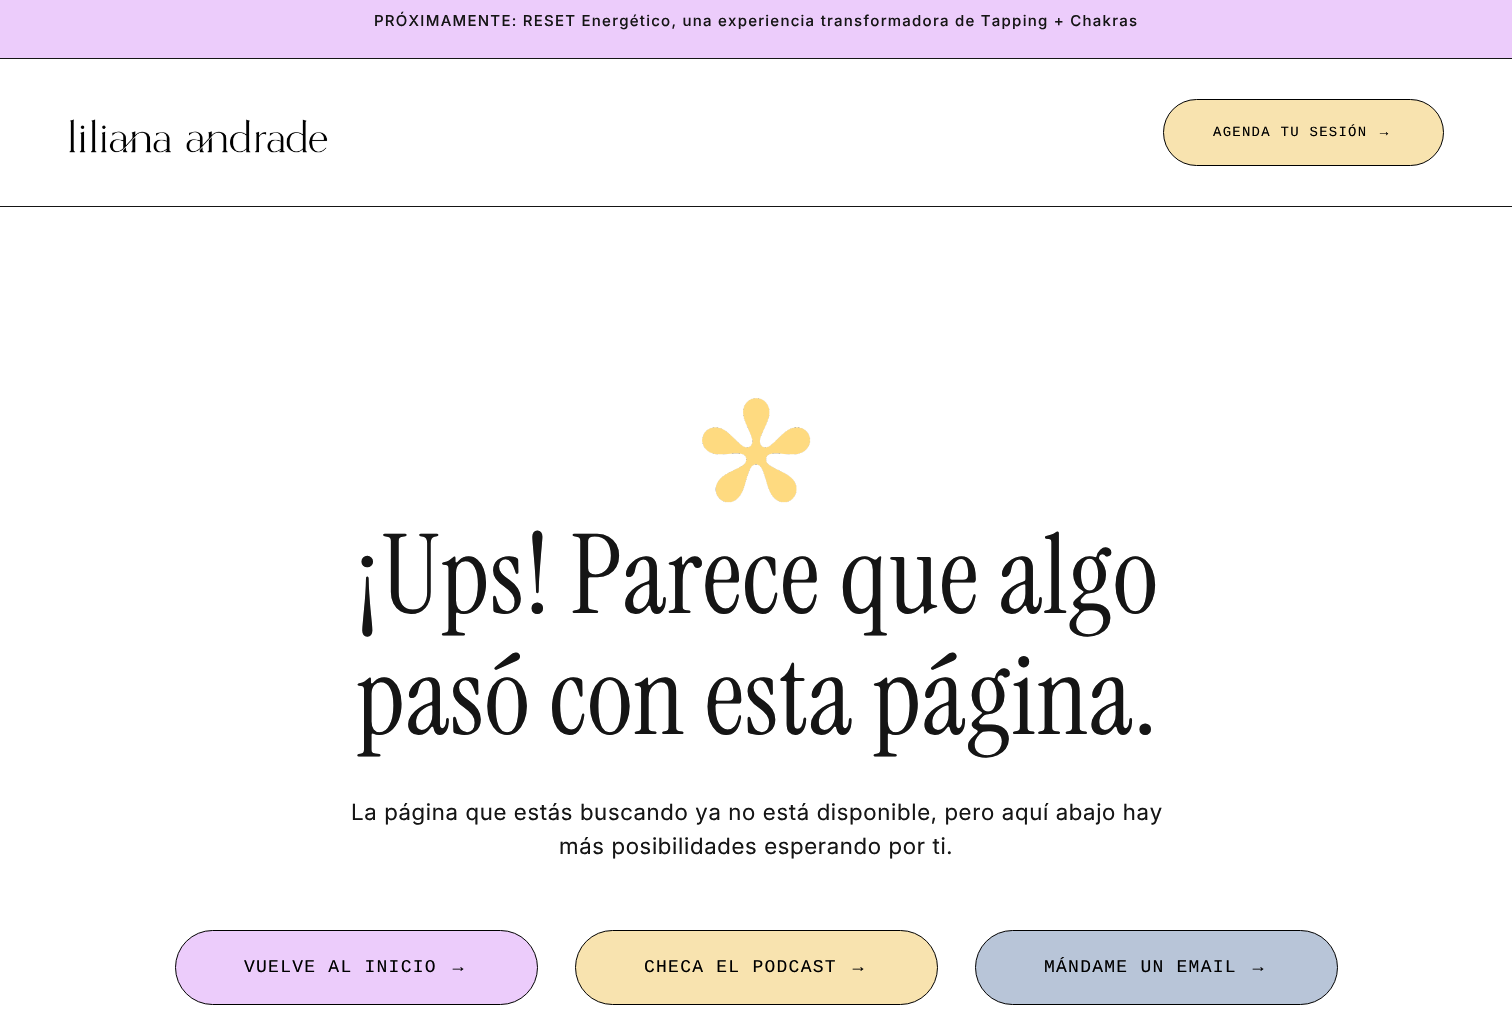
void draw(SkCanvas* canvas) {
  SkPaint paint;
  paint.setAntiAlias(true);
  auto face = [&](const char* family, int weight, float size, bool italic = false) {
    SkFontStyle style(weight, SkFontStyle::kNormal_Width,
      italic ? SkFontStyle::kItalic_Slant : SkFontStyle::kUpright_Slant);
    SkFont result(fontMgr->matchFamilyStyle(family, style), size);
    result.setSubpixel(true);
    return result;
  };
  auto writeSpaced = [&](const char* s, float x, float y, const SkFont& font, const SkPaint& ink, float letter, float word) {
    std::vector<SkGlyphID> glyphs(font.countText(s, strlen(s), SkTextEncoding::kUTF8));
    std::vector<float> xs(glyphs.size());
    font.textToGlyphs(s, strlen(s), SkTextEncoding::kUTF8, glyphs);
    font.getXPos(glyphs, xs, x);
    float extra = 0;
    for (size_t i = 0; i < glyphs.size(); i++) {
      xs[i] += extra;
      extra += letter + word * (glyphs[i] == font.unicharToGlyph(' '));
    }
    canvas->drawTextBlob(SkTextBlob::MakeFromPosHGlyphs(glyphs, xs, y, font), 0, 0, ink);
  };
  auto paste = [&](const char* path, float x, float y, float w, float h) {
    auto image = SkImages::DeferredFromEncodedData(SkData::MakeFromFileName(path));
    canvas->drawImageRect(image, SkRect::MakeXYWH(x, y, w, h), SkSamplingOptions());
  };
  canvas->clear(0xffffffff);
  {
    const struct { float x, y, w, h; SkColor color; } items[] = {
      {0, 0, 1512, 58, 0xffecccfb},
      {0, 58, 1512, 1, 0xff151515},
      {0, 206, 1512, 1, 0xff151515},
    };
    for (auto [x, y, w, h, color] : items) {
      paint.setColor(color);
      canvas->drawRect(SkRect::MakeXYWH(x, y, w, h), paint);
    }
  }
  paste("img/1.png", 69, 119, 259, 34);
  paint.setColor(0xfff8e3af);
  canvas->drawRoundRect(SkRect::MakeXYWH(1163.5f, 99.5f, 280, 66), 33, 33, paint);
  paint.setStroke(true);
  paint.setStrokeWidth(1);
  paint.setColor(0xff000000);
  canvas->drawRoundRect(SkRect::MakeXYWH(1163.5f, 99.5f, 280, 66), 33, 33, paint);
  paste("img/2.png", 702, 398, 109, 105);
  paint.setStroke(false);
  paint.setColor(0xffecccfb);
  canvas->drawRoundRect(SkRect::MakeXYWH(175.5f, 930.5f, 362, 74), 37, 37, paint);
  paint.setStroke(true);
  paint.setColor(0xff000000);
  canvas->drawRoundRect(SkRect::MakeXYWH(175.5f, 930.5f, 362, 74), 37, 37, paint);
  paint.setStroke(false);
  paint.setColor(0xfff8e3af);
  canvas->drawRoundRect(SkRect::MakeXYWH(575.5f, 930.5f, 362, 74), 37, 37, paint);
  paint.setStroke(true);
  paint.setColor(0xff000000);
  canvas->drawRoundRect(SkRect::MakeXYWH(575.5f, 930.5f, 362, 74), 37, 37, paint);
  paint.setStroke(false);
  paint.setColor(0xffb8c5d8);
  canvas->drawRoundRect(SkRect::MakeXYWH(975.5f, 930.5f, 362, 74), 37, 37, paint);
  paint.setStroke(true);
  paint.setColor(0xff000000);
  canvas->drawRoundRect(SkRect::MakeXYWH(975.5f, 930.5f, 362, 74), 37, 37, paint);
  auto f0 = face("Inter", 500, 15);
  paint.setStroke(false);
  paint.setColor(0xff151515);
  writeSpaced("PRÓXIMAMENTE: RESET Energético, una experiencia transformadora de Tapping + Chakras", 374, 26, f0, paint, 1.25f, 0);
  auto f1 = face("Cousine", 400, 14);
  paint.setColor(0xff000000);
  writeSpaced("AGENDA TU SESIÓN", 1213, 136, f1, paint, 1.25f, 0);
  auto f2 = face("Liberation Sans", 400, 14);
  writeSpaced("→", 1377, 136, f2, paint, 1.25f, 0);
  auto f3 = face("Instrument Serif", 400, 110);
  paint.setColor(0xff151515);
  writeSpaced("¡Ups! Parece que algo", 354, 613, f3, paint, 0.68f, 0);
  writeSpaced("pasó con esta página.", 356, 734, f3, paint, 0.68f, 0);
  auto f4 = face("Inter", 400, 22.5f);
  writeSpaced("La página que estás buscando ya no está disponible, pero aquí abajo hay", 351, 820, f4, paint, 0.68f, 0);
  writeSpaced("más posibilidades esperando por ti.", 559, 854, f4, paint, 0.68f, 0);
  auto f5 = face("Cousine", 400, 18);
  paint.setColor(0xff000000);
  writeSpaced("VUELVE AL INICIO", 244, 972, f5, paint, 1.25f, 0);
  auto f6 = face("Liberation Sans", 400, 18);
  writeSpaced("→", 449, 972, f6, paint, 1.25f, 0);
  writeSpaced("CHECA EL PODCAST", 644, 972, f5, paint, 1.25f, 0);
  writeSpaced("→", 849, 972, f6, paint, 1.25f, 0);
  writeSpaced("MÁNDAME UN EMAIL", 1044, 972, f5, paint, 1.25f, 0);
  writeSpaced("→", 1249, 972, f6, paint, 1.25f, 0);
}
